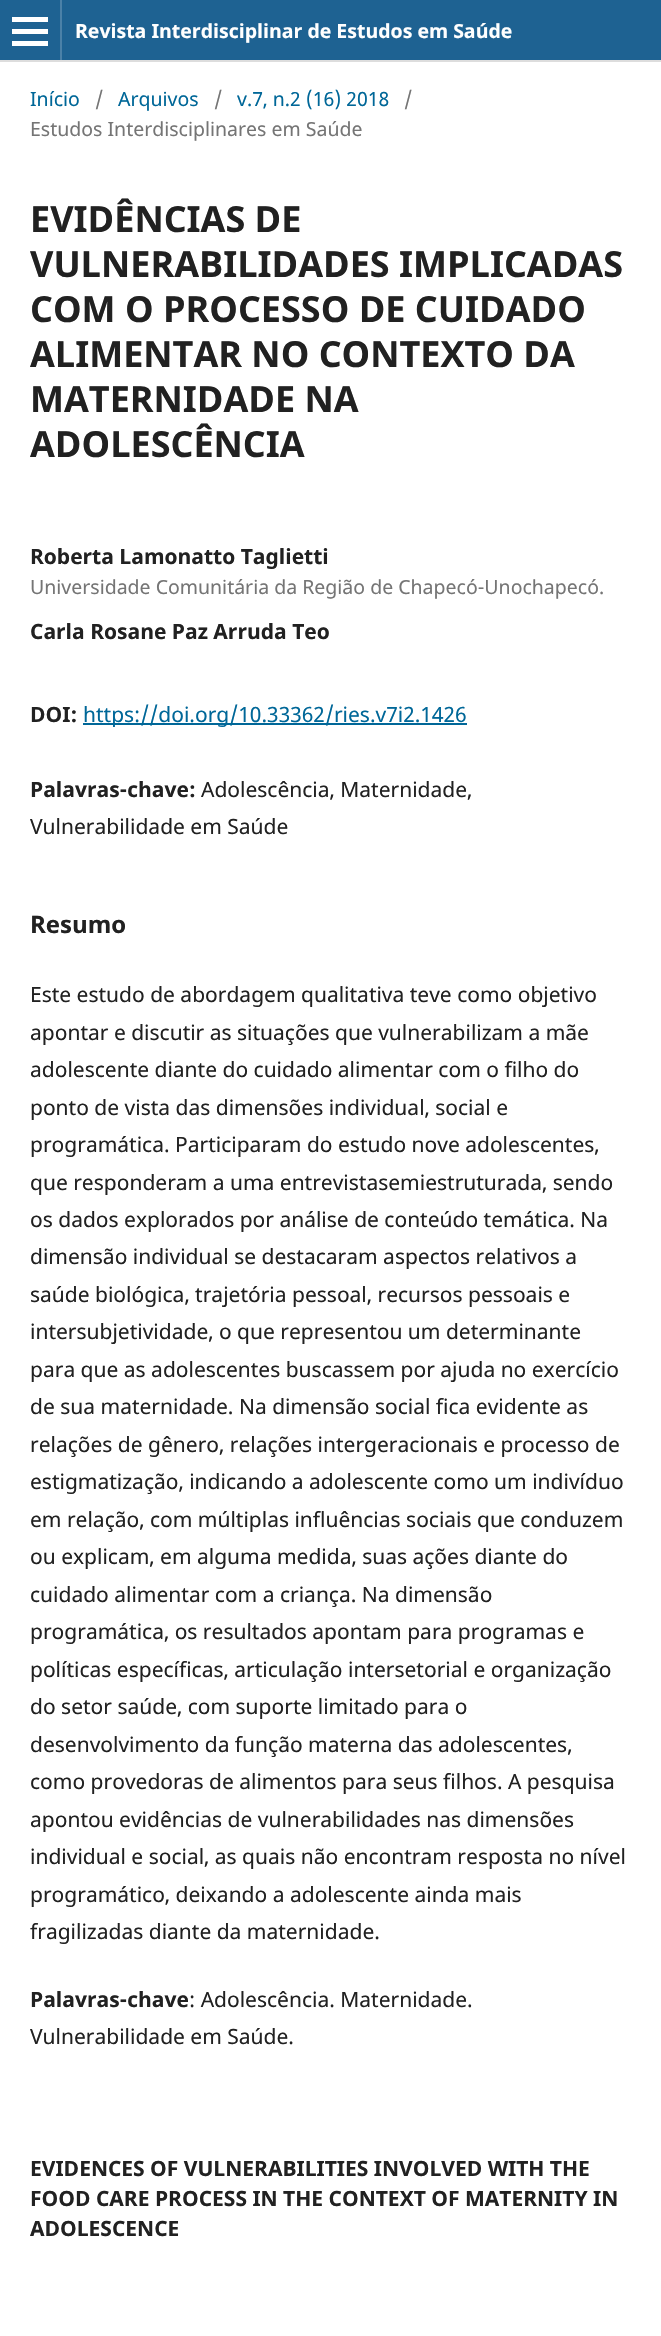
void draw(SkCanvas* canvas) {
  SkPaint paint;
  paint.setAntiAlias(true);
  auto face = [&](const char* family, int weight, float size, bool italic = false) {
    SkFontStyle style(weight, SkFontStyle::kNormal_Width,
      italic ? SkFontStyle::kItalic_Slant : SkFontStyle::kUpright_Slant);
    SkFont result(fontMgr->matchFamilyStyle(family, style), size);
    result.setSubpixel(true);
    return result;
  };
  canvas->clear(0xffffffff);
  {
    const struct { float x, y, w, h; SkColor color; } items[] = {
      {0, 0, 661, 60, 0xff1e6292},
      {0, 60, 661, 2, 0xffdddddd},
      {60, 0, 2, 60, 0xff4b81a8},
      {12, 41, 36, 5, 0xffffffff},
      {12, 17, 36, 5, 0xffffffff},
      {12, 29, 36, 5, 0xffffffff},
      {83, 723, 384, 2, 0xff006798},
    };
    for (auto [x, y, w, h, color] : items) {
      paint.setColor(color);
      canvas->drawRect(SkRect::MakeXYWH(x, y, w, h), paint);
    }
  }
  auto f0 = face("Noto Sans", 700, 19.5f);
  paint.setColor(0xffffffff);
  canvas->drawString("Revista Interdisciplinar de Estudos em Saúde", 75, 38, f0, paint);
  auto f1 = face("Noto Sans", 400, 19.5f);
  paint.setColor(0xff006798);
  canvas->drawString("Início", 30, 106, f1, paint);
  paint.setColor(0xff757575);
  canvas->drawString("/", 95, 106, f1, paint);
  paint.setColor(0xff006798);
  canvas->drawString("Arquivos", 118, 106, f1, paint);
  paint.setColor(0xff757575);
  canvas->drawString("/", 214, 106, f1, paint);
  paint.setColor(0xff006798);
  canvas->drawString("v.7, n.2 (16) 2018", 237, 106, f1, paint);
  paint.setColor(0xff757575);
  canvas->drawString("/", 404, 106, f1, paint);
  canvas->drawString("Estudos Interdisciplinares em Saúde", 30, 136, f1, paint);
  auto f2 = face("Noto Sans", 700, 36);
  paint.setColor(0xff212121);
  {
    const struct { const char* s; float x, y; } items[] = {
      {"EVIDÊNCIAS DE", 30, 232},
      {"VULNERABILIDADES IMPLICADAS", 30, 277},
      {"COM O PROCESSO DE CUIDADO", 30, 322},
      {"ALIMENTAR NO CONTEXTO DA", 30, 367},
      {"MATERNIDADE NA", 30, 412},
      {"ADOLESCÊNCIA", 30, 457},
    };
    for (auto [s, x, y] : items) {
      canvas->drawString(s, x, y, f2, paint);
    }
  }
  auto f3 = face("Noto Sans", 700, 21);
  canvas->drawString("Roberta Lamonatto Taglietti", 30, 564, f3, paint);
  paint.setColor(0xff757575);
  canvas->drawString("Universidade Comunitária da Região de Chapecó-Unochapecó.", 30, 594, f1, paint);
  paint.setColor(0xff212121);
  canvas->drawString("Carla Rosane Paz Arruda Teo", 30, 639, f3, paint);
  canvas->drawString("DOI:", 30, 722, f3, paint);
  auto f4 = face("Noto Sans", 400, 21);
  paint.setColor(0xff006798);
  canvas->drawString("https://doi.org/10.33362/ries.v7i2.1426", 83, 722, f4, paint);
  paint.setColor(0xff212121);
  canvas->drawString("Palavras-chave:", 30, 797, f3, paint);
  canvas->drawString("Adolescência, Maternidade,", 201, 797, f4, paint);
  canvas->drawString("Vulnerabilidade em Saúde", 30, 834, f4, paint);
  auto f5 = face("Noto Sans", 700, 24);
  canvas->drawString("Resumo", 30, 933, f5, paint);
  {
    const struct { const char* s; float x, y; } items[] = {
      {"Este estudo de abordagem qualitativa teve como objetivo", 30, 1002},
      {"apontar e discutir as situações que vulnerabilizam a mãe", 30, 1040},
      {"adolescente diante do cuidado alimentar com o filho do", 30, 1077},
      {"ponto de vista das dimensões individual, social e", 30, 1115},
      {"programática. Participaram do estudo nove adolescentes,", 30, 1152},
      {"que responderam a uma entrevistasemiestruturada, sendo", 30, 1190},
      {"os dados explorados por análise de conteúdo temática. Na", 30, 1227},
      {"dimensão individual se destacaram aspectos relativos a", 30, 1264},
      {"saúde biológica, trajetória pessoal, recursos pessoais e", 30, 1302},
      {"intersubjetividade, o que representou um determinante", 30, 1339},
      {"para que as adolescentes buscassem por ajuda no exercício", 30, 1377},
      {"de sua maternidade. Na dimensão social fica evidente as", 30, 1414},
      {"relações de gênero, relações intergeracionais e processo de", 30, 1452},
      {"estigmatização, indicando a adolescente como um indivíduo", 30, 1489},
      {"em relação, com múltiplas influências sociais que conduzem", 30, 1527},
      {"ou explicam, em alguma medida, suas ações diante do", 30, 1564},
      {"cuidado alimentar com a criança. Na dimensão", 30, 1602},
      {"programática, os resultados apontam para programas e", 30, 1639},
      {"políticas específicas, articulação intersetorial e organização", 30, 1677},
      {"do setor saúde, com suporte limitado para o", 30, 1714},
      {"desenvolvimento da função materna das adolescentes,", 30, 1752},
      {"como provedoras de alimentos para seus filhos. A pesquisa", 30, 1789},
      {"apontou evidências de vulnerabilidades nas dimensões", 30, 1827},
      {"individual e social, as quais não encontram resposta no nível", 30, 1864},
      {"programático, deixando a adolescente ainda mais", 30, 1902},
      {"fragilizadas diante da maternidade.", 30, 1939},
    };
    for (auto [s, x, y] : items) {
      canvas->drawString(s, x, y, f4, paint);
    }
  }
  canvas->drawString("Palavras-chave", 30, 2007, f3, paint);
  canvas->drawString(": Adolescência. Maternidade.", 189, 2007, f4, paint);
  canvas->drawString("Vulnerabilidade em Saúde.", 30, 2044, f4, paint);
  {
    const struct { const char* s; float x, y; } items[] = {
      {"EVIDENCES OF VULNERABILITIES INVOLVED WITH THE", 30, 2176},
      {"FOOD CARE PROCESS IN THE CONTEXT OF MATERNITY IN", 30, 2206},
      {"ADOLESCENCE", 30, 2236},
    };
    for (auto [s, x, y] : items) {
      canvas->drawString(s, x, y, f3, paint);
    }
  }
}
